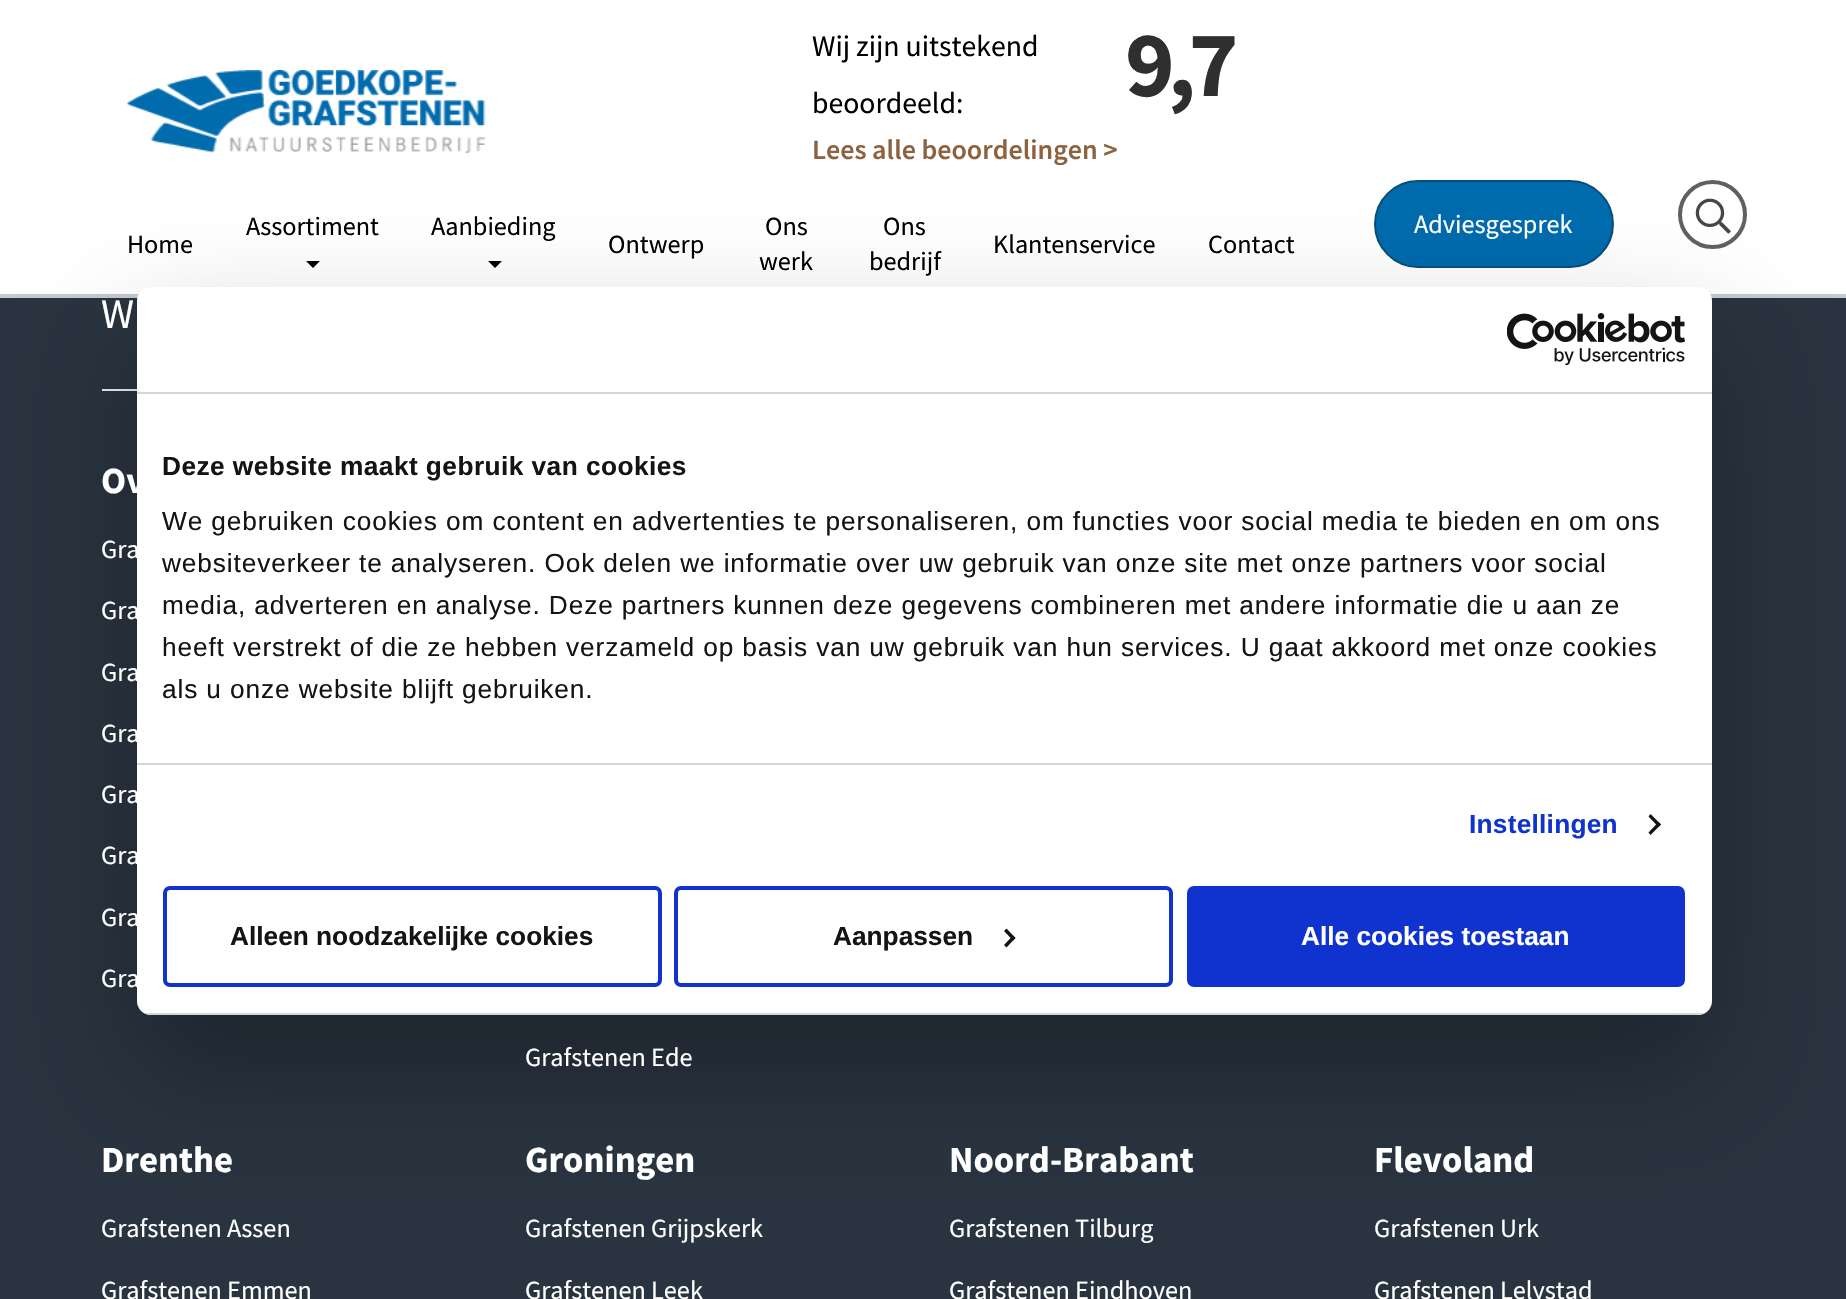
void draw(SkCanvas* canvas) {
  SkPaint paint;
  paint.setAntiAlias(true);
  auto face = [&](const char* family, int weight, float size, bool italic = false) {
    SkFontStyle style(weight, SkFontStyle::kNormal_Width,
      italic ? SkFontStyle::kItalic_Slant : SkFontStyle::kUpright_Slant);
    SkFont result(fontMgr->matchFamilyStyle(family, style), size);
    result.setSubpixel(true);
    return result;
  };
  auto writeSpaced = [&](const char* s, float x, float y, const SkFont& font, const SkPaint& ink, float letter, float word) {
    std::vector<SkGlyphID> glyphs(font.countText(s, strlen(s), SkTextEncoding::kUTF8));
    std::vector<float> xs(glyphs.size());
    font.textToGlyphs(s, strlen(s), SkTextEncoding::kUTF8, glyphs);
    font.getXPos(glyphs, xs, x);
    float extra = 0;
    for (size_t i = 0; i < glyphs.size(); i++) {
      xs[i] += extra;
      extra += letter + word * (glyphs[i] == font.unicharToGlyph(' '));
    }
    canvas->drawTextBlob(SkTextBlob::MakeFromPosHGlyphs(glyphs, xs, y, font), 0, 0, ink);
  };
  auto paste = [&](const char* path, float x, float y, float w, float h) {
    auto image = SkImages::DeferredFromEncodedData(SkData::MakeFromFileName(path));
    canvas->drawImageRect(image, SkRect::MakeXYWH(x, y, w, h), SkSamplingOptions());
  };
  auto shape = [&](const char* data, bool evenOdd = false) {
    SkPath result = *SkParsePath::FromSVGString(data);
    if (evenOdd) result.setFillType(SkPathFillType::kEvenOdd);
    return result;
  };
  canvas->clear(0xff293440);
  paint.setColor(0xffffffff);
  canvas->drawRect(SkRect::MakeXYWH(0, 0, 1846, 294), paint);
  paste("img/1.png", 127, 70, 359, 84);
  paint.setColor(0xffc5cacf);
  canvas->drawRect(SkRect::MakeXYWH(0, 294, 1846, 4), paint);
  paint.setColor(0xff000000);
  canvas->drawPath(shape("M306 261H320L313 268Z"), paint);
  canvas->drawPath(shape("M488 261H502L495 268Z"), paint);
  paint.setColor(0xff006bad);
  canvas->drawRoundRect(SkRect::MakeXYWH(1375, 181, 238, 86), 43, 43, paint);
  paint.setStroke(true);
  paint.setStrokeWidth(2);
  paint.setColor(0xff094d77);
  canvas->drawRoundRect(SkRect::MakeXYWH(1375, 181, 238, 86), 43, 43, paint);
  paint.setStrokeWidth(4);
  paint.setColor(0xff616060);
  canvas->drawCircle(1712.5f, 214.5f, 32.5f, paint);
  paste("img/2.png", 1695, 198, 36, 36);
  paint.setStroke(false);
  paint.setColor(0xffeeeeee);
  canvas->drawRect(SkRect::MakeXYWH(102, 389, 35, 2), paint);
  paint.setColor(0x4d000000);
  paint.setMaskFilter(SkMaskFilter::MakeBlur(kNormal_SkBlurStyle, 59.5f));
  canvas->drawRoundRect(SkRect::MakeXYWH(137, 343, 1575, 728), 14, 14, paint);
  paint.setMaskFilter(nullptr);
  paint.setColor(0xffffffff);
  canvas->drawRoundRect(SkRect::MakeXYWH(137, 287, 1575, 728), 14, 14, paint);
  paint.setColor(0xffd6d6d6);
  canvas->drawRect(SkRect::MakeXYWH(137, 392, 1575, 2), paint);
  paste("img/3.png", 1507, 313, 178, 53);
  canvas->drawRect(SkRect::MakeXYWH(137, 763, 1575, 2), paint);
  paint.setColor(0xff141414);
  canvas->drawPath(shape("M1650.5 814L1661 824.5L1658.5 827L1648.5 816.5Z"), paint);
  canvas->drawPath(shape("M1658.5 822L1661 824.5L1650.5 835L1648.5 832.5Z"), paint);
  canvas->save();
  canvas->clipPath(shape("M151 287H1698C1705.5 287 1712 293.5 1712 301V1001C1712 1008.5 1705.5 1015 1698 1015H151C143.5 1015 137 1008.5 137 1001V301C137 293.5 143.5 287 151 287Z"), true);
  paint.setColor(0xffd6d6d6);
  canvas->drawRect(SkRect::MakeXYWH(137, 1013, 1575, 2), paint);
  canvas->restore();
  paint.setStroke(true);
  paint.setColor(0xff1032cf);
  canvas->drawRoundRect(SkRect::MakeXYWH(165, 888, 495, 97), 5, 5, paint);
  canvas->drawRoundRect(SkRect::MakeXYWH(676, 888, 495, 97), 5, 5, paint);
  paint.setStroke(false);
  paint.setColor(0xff141414);
  canvas->drawPath(shape("M1006.5 928.5L1015.5 938L1013 940.5L1004 931Z"), paint);
  canvas->drawPath(shape("M1013 935.5L1015.5 938L1006.5 947.5L1004 945Z"), paint);
  paint.setColor(0xff1032cf);
  canvas->drawRoundRect(SkRect::MakeXYWH(1189, 888, 494, 97), 5, 5, paint);
  paint.setStroke(true);
  canvas->drawRoundRect(SkRect::MakeXYWH(1189, 888, 494, 97), 5, 5, paint);
  auto f0 = face("Source Sans Pro", 400, 29.75f);
  paint.setStroke(false);
  paint.setColor(0xff000000);
  canvas->drawString("Wij zijn uitstekend", 812, 56, f0, paint);
  auto f1 = face("Source Sans Pro", 700, 94);
  paint.setColor(0xff2f2f2f);
  writeSpaced("9,7", 1125, 96, f1, paint, -7, 0);
  paint.setColor(0xff000000);
  canvas->drawString("beoordeeld:", 812, 113, f0, paint);
  auto f2 = face("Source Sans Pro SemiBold", 600, 28);
  paint.setColor(0xff8d623e);
  canvas->drawString("Lees alle beoordelingen >", 812, 159, f2, paint);
  auto f3 = face("Source Sans Pro", 400, 26.25f);
  paint.setColor(0xff000000);
  {
    const struct { const char* s; float x, y; } items[] = {
      {"Home", 127, 253},
      {"Assortiment", 246, 235},
      {"Aanbieding", 431, 235},
      {"Ontwerp", 608, 253},
      {"Ons", 765, 235},
      {"werk", 759, 270},
      {"Ons", 883, 235},
      {"bedrijf", 869, 270},
      {"Klantenservice", 993, 253},
      {"Contact", 1208, 253},
    };
    for (auto [s, x, y] : items) {
      canvas->drawString(s, x, y, f3, paint);
    }
  }
  paint.setColor(0xffffffff);
  canvas->drawString("Adviesgesprek", 1414, 233, f3, paint);
  auto f4 = face("Source Sans Pro", 400, 42);
  canvas->drawString("W", 101, 328, f4, paint);
  auto f5 = face("Source Sans Pro", 700, 36.75f);
  canvas->drawString("Ov", 101, 493, f5, paint);
  {
    const struct { const char* s; float x, y; } items[] = {
      {"Gra", 101, 558},
      {"Gra", 101, 619},
      {"Gra", 101, 681},
      {"Gra", 101, 742},
      {"Gra", 101, 803},
      {"Gra", 101, 864},
      {"Gra", 101, 926},
      {"Gra", 101, 987},
      {"Grafstenen Ede", 525, 1066},
    };
    for (auto [s, x, y] : items) {
      canvas->drawString(s, x, y, f3, paint);
    }
  }
  canvas->drawString("Drenthe", 101, 1172, f5, paint);
  canvas->drawString("Grafstenen Assen", 101, 1237, f3, paint);
  canvas->drawString("Grafstenen Emmen", 101, 1299, f3, paint);
  canvas->drawString("Groningen", 525, 1172, f5, paint);
  canvas->drawString("Grafstenen Grijpskerk", 525, 1237, f3, paint);
  canvas->drawString("Grafstenen Leek", 525, 1299, f3, paint);
  canvas->drawString("Noord-Brabant", 949, 1172, f5, paint);
  canvas->drawString("Grafstenen Tilburg", 949, 1237, f3, paint);
  canvas->drawString("Grafstenen Eindhoven", 949, 1299, f3, paint);
  canvas->drawString("Flevoland", 1374, 1172, f5, paint);
  canvas->drawString("Grafstenen Urk", 1374, 1237, f3, paint);
  canvas->drawString("Grafstenen Lelystad", 1374, 1299, f3, paint);
  auto f6 = face("Liberation Sans", 700, 26.25f);
  paint.setColor(0xff141414);
  writeSpaced("Deze website maakt gebruik van cookies", 162, 475, f6, paint, 0.45f, 0);
  auto f7 = face("Liberation Sans", 400, 26.25f);
  {
    const struct { const char* s; float x, y; } items[] = {
      {"We gebruiken cookies om content en advertenties te personaliseren, om functies voor social media te bieden en om ons", 162, 530},
      {"websiteverkeer te analyseren. Ook delen we informatie over uw gebruik van onze site met onze partners voor social", 162, 572},
      {"media, adverteren en analyse. Deze partners kunnen deze gegevens combineren met andere informatie die u aan ze", 162, 614},
      {"heeft verstrekt of die ze hebben verzameld op basis van uw gebruik van hun services. U gaat akkoord met onze cookies", 162, 656},
      {"als u onze website blijft gebruiken.", 162, 698},
    };
    for (auto [s, x, y] : items) {
      writeSpaced(s, x, y, f7, paint, 0.88f, 0);
    }
  }
  paint.setColor(0xff1032cf);
  writeSpaced("Instellingen", 1469, 833, f6, paint, 0.25f, 0);
  paint.setColor(0xff141414);
  canvas->drawString("Alleen noodzakelijke cookies", 230, 945, f6, paint);
  canvas->drawString("Aanpassen", 833, 945, f6, paint);
  paint.setColor(0xffffffff);
  canvas->drawString("Alle cookies toestaan", 1301, 945, f6, paint);
}
